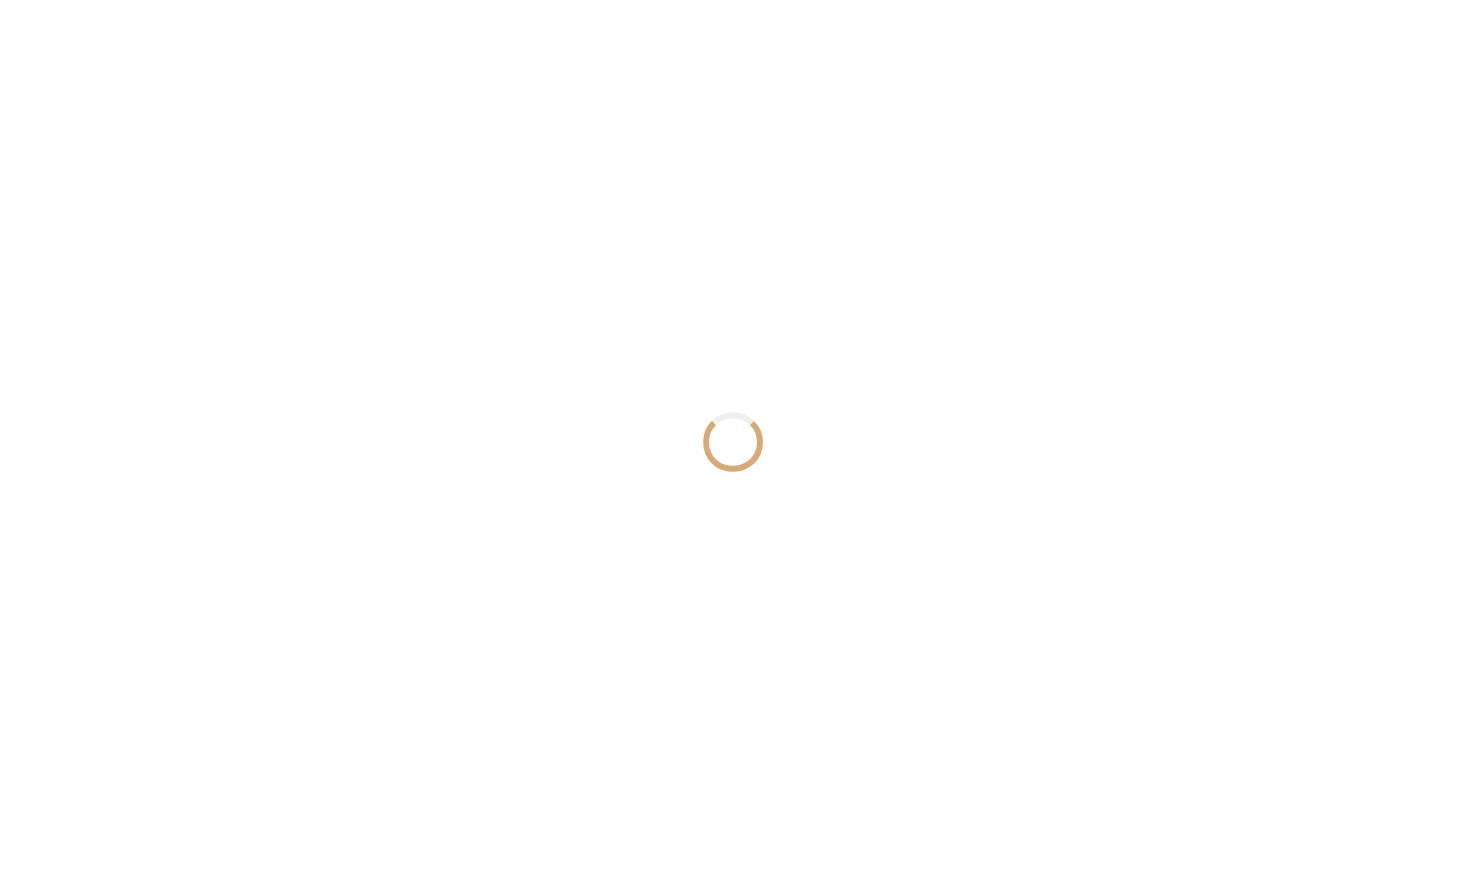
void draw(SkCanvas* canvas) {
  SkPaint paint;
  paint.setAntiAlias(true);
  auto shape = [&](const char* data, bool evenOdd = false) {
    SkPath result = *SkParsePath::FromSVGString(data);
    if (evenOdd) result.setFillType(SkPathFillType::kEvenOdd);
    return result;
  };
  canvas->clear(0xffffffff);
  paint.setStroke(true);
  paint.setStrokeWidth(6);
  paint.setColor(0xffefefef);
  canvas->drawPath(shape("M714 423C724.5 412.5 741.5 412.5 752 423"), paint);
  paint.setColor(0x99bc7121);
  canvas->drawPath(shape("M752 423C757 428 760 435 760 442C760 474 713 479 706.5 447.5C705 438.5 707.5 429 714 423"), paint);
}
